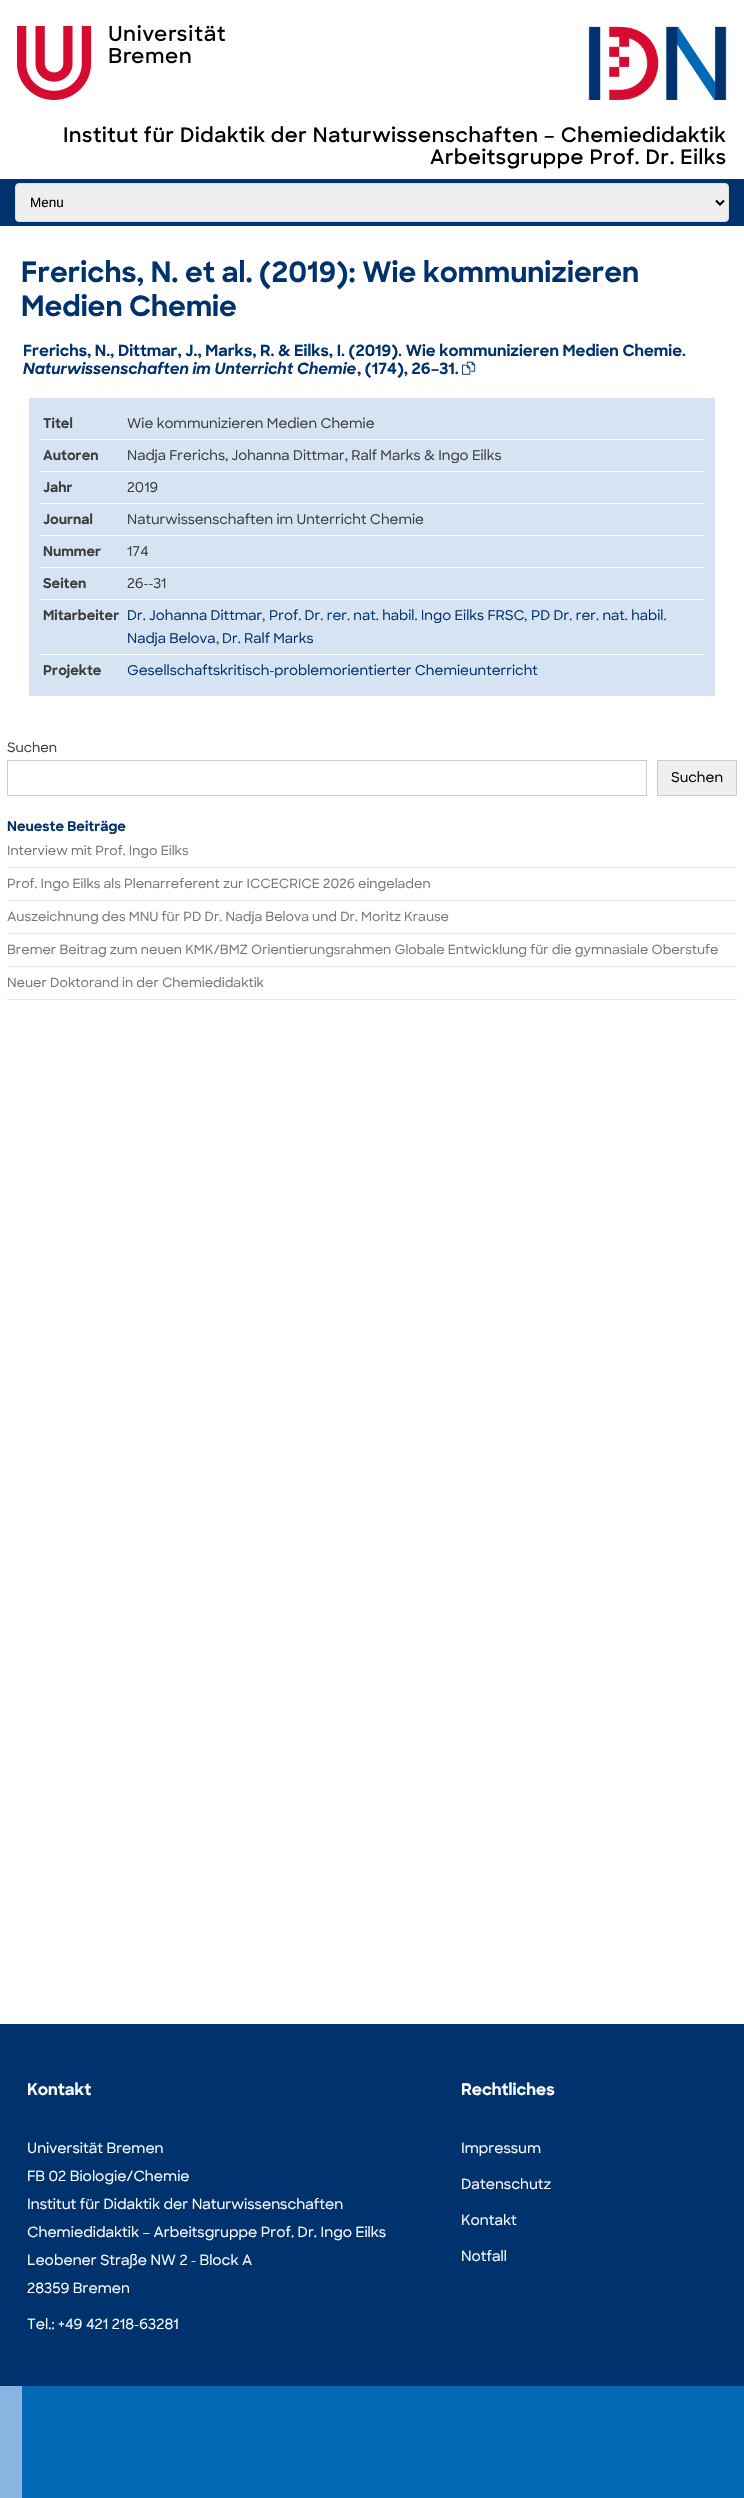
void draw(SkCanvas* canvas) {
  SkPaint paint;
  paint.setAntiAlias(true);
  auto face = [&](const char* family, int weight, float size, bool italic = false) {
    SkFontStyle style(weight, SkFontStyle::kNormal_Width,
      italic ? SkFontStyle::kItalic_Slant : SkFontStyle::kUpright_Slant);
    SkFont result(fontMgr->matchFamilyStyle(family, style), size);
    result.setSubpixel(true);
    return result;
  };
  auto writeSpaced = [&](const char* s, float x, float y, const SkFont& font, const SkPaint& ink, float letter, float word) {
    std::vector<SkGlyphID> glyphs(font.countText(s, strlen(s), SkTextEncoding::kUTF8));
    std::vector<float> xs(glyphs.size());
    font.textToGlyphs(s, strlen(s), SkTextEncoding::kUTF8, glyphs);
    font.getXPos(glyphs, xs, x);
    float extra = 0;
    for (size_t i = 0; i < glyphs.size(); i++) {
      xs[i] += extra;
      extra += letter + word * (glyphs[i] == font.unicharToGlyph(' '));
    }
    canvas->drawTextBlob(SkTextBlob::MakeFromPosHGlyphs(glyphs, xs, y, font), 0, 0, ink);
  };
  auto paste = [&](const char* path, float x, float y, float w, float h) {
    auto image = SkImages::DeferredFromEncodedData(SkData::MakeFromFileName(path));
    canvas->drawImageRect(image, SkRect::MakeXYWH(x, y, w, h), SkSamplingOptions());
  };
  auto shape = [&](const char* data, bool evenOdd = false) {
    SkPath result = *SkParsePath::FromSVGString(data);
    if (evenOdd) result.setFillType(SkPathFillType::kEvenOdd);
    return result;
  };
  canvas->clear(0xffffffff);
  paste("img/1.png", 17, 25, 209, 75);
  paste("img/2.png", 588, 26, 139, 74);
  paint.setColor(0xff00326d);
  canvas->drawRect(SkRect::MakeXYWH(0, 179, 744, 47), paint);
  paint.setColor(0xffefefef);
  canvas->drawRoundRect(SkRect::MakeXYWH(15.5f, 183.5f, 713, 38), 3.5f, 3.5f, paint);
  paint.setStroke(true);
  paint.setStrokeWidth(1);
  paint.setColor(0xffdddddd);
  canvas->drawRoundRect(SkRect::MakeXYWH(15.5f, 183.5f, 713, 38), 3.5f, 3.5f, paint);
  paint.setStrokeWidth(2);
  paint.setColor(0xff000000);
  canvas->drawPath(shape("M716 200.5L720 204.5L724 200.5"), paint);
  paste("img/3.png", 462, 361, 14, 14);
  paint.setStroke(false);
  {
    const struct { float x, y, w, h; SkColor color; } items[] = {
      {39, 398, 666, 288, 0xffd5e3f3},
      {33, 439, 678, 1, 0xffffffff},
      {33, 471, 678, 1, 0xffffffff},
      {33, 503, 678, 1, 0xffffffff},
      {33, 535, 678, 1, 0xffffffff},
      {33, 567, 678, 1, 0xffffffff},
      {33, 599, 678, 1, 0xffffffff},
      {33, 654, 678, 1, 0xffffffff},
      {705, 398, 10, 288, 0xffd5e3f3},
      {39, 686, 676, 10, 0xffd5e3f3},
      {29, 398, 10, 298, 0xffd5e3f3},
    };
    for (auto [x, y, w, h, color] : items) {
      paint.setColor(color);
      canvas->drawRect(SkRect::MakeXYWH(x, y, w, h), paint);
    }
  }
  paint.setStroke(true);
  paint.setStrokeWidth(1);
  paint.setColor(0xffcccccc);
  canvas->drawRect(SkRect::MakeXYWH(7.5f, 760.5f, 639, 35), paint);
  paint.setStroke(false);
  paint.setColor(0xffefefef);
  canvas->drawRect(SkRect::MakeXYWH(657.5f, 760.5f, 79, 35), paint);
  paint.setStroke(true);
  paint.setColor(0xffcccccc);
  canvas->drawRect(SkRect::MakeXYWH(657.5f, 760.5f, 79, 35), paint);
  paint.setStroke(false);
  {
    const struct { float x, y, w, h; SkColor color; } items[] = {
      {7, 867, 730, 1, 0xffe9e9e9},
      {7, 900, 730, 1, 0xffe9e9e9},
      {7, 933, 730, 1, 0xffe9e9e9},
      {7, 966, 730, 1, 0xffe9e9e9},
      {7, 999, 730, 1, 0xffe9e9e9},
      {0, 2024, 744, 362, 0xff00326d},
    };
    for (auto [x, y, w, h, color] : items) {
      paint.setColor(color);
      canvas->drawRect(SkRect::MakeXYWH(x, y, w, h), paint);
    }
  }
  paste("img/4.png", 0, 2386, 744, 112);
  auto f0 = face("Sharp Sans", 600, 20);
  paint.setColor(0xff000000);
  writeSpaced("Institut für Didaktik der Naturwissenschaften – Chemiedidaktik", 63, 142, f0, paint, 0.6f, 0);
  writeSpaced("Arbeitsgruppe Prof. Dr. Eilks", 430, 164, f0, paint, 0.6f, 0);
  auto f1 = face("Liberation Sans", 400, 13.5f);
  canvas->drawString("Menu", 30, 207, f1, paint);
  auto f2 = face("Sharp Sans", 700, 28);
  paint.setColor(0xff00326d);
  canvas->drawString("Frerichs, N. et al. (2019): Wie kommunizieren", 21, 282, f2, paint);
  canvas->drawString("Medien Chemie", 21, 316, f2, paint);
  auto f3 = face("Sharp Sans", 700, 15.5f);
  canvas->drawString("Frerichs, N., Dittmar, J., Marks, R. & Eilks, I. (2019). Wie kommunizieren Medien Chemie.", 23, 356, f3, paint);
  auto f4 = face("Sharp Sans", 700, 15.5f, true);
  canvas->drawString("Naturwissenschaften im Unterricht Chemie", 23, 374, f4, paint);
  canvas->drawString(", (174), 26–31.", 357, 374, f3, paint);
  auto f5 = face("Sharp Sans", 700, 13.5f);
  paint.setColor(0xff3c3c3c);
  canvas->drawString("Titel", 43, 428, f5, paint);
  auto f6 = face("Sharp Sans", 500, 13.5f);
  canvas->drawString("Wie kommunizieren Medien Chemie", 127, 428, f6, paint);
  canvas->drawString("Autoren", 43, 460, f5, paint);
  canvas->drawString("Nadja Frerichs, Johanna Dittmar, Ralf Marks & Ingo Eilks", 127, 460, f6, paint);
  canvas->drawString("Jahr", 43, 492, f5, paint);
  canvas->drawString("2019", 127, 492, f6, paint);
  canvas->drawString("Journal", 43, 524, f5, paint);
  canvas->drawString("Naturwissenschaften im Unterricht Chemie", 127, 524, f6, paint);
  canvas->drawString("Nummer", 43, 556, f5, paint);
  canvas->drawString("174", 127, 556, f6, paint);
  canvas->drawString("Seiten", 43, 588, f5, paint);
  canvas->drawString("26--31", 127, 588, f6, paint);
  canvas->drawString("Mitarbeiter", 43, 620, f5, paint);
  paint.setColor(0xff00326d);
  canvas->drawString("Dr. Johanna Dittmar", 127, 620, f6, paint);
  paint.setColor(0xff3c3c3c);
  canvas->drawString(",", 262, 620, f6, paint);
  paint.setColor(0xff00326d);
  canvas->drawString("Prof. Dr. rer. nat. habil. Ingo Eilks FRSC", 269, 620, f6, paint);
  paint.setColor(0xff3c3c3c);
  canvas->drawString(",", 524, 620, f6, paint);
  paint.setColor(0xff00326d);
  canvas->drawString("PD Dr. rer. nat. habil.", 531, 620, f6, paint);
  canvas->drawString("Nadja Belova", 127, 643, f6, paint);
  paint.setColor(0xff3c3c3c);
  canvas->drawString(",", 216, 643, f6, paint);
  paint.setColor(0xff00326d);
  canvas->drawString("Dr. Ralf Marks", 222, 643, f6, paint);
  paint.setColor(0xff3c3c3c);
  canvas->drawString("Projekte", 43, 675, f5, paint);
  paint.setColor(0xff00326d);
  canvas->drawString("Gesellschaftskritisch-problemorientierter Chemieunterricht", 127, 675, f6, paint);
  auto f7 = face("Sharp Sans", 500, 13);
  paint.setColor(0xff3c3c3c);
  canvas->drawString("Suchen", 7, 752, f7, paint);
  paint.setColor(0xff000000);
  canvas->drawString("Suchen", 671, 782, f6, paint);
  paint.setColor(0xff00326d);
  canvas->drawString("Neueste Beiträge", 7, 831, f5, paint);
  auto f8 = face("Sharp Sans", 500, 12.75f);
  paint.setColor(0xff757575);
  {
    const struct { const char* s; float x, y; } items[] = {
      {"Interview mit Prof. Ingo Eilks", 7, 855},
      {"Prof. Ingo Eilks als Plenarreferent zur ICCECRICE 2026 eingeladen", 7, 888},
      {"Auszeichnung des MNU für PD Dr. Nadja Belova und Dr. Moritz Krause", 7, 921},
      {"Bremer Beitrag zum neuen KMK/BMZ Orientierungsrahmen Globale Entwicklung für die gymnasiale Oberstufe", 7, 954},
      {"Neuer Doktorand in der Chemiedidaktik", 7, 987},
    };
    for (auto [s, x, y] : items) {
      canvas->drawString(s, x, y, f8, paint);
    }
  }
  auto f9 = face("Sharp Sans", 700, 16);
  paint.setColor(0xffffffff);
  canvas->drawString("Kontakt", 27, 2095, f9, paint);
  auto f10 = face("Sharp Sans", 500, 14);
  {
    const struct { const char* s; float x, y; } items[] = {
      {"Universität Bremen", 27, 2153},
      {"FB 02 Biologie/Chemie", 27, 2181},
      {"Institut für Didaktik der Naturwissenschaften", 27, 2209},
      {"Chemiedidaktik – Arbeitsgruppe Prof. Dr. Ingo Eilks", 27, 2237},
      {"Leobener Straße NW 2 - Block A", 27, 2265},
      {"28359 Bremen", 27, 2293},
      {"Tel.: +49 421 218-63281", 27, 2329},
    };
    for (auto [s, x, y] : items) {
      canvas->drawString(s, x, y, f10, paint);
    }
  }
  canvas->drawString("Rechtliches", 461, 2095, f9, paint);
  {
    const struct { const char* s; float x, y; } items[] = {
      {"Impressum", 461, 2153},
      {"Datenschutz", 461, 2189},
      {"Kontakt", 461, 2225},
      {"Notfall", 461, 2261},
    };
    for (auto [s, x, y] : items) {
      canvas->drawString(s, x, y, f10, paint);
    }
  }
}
